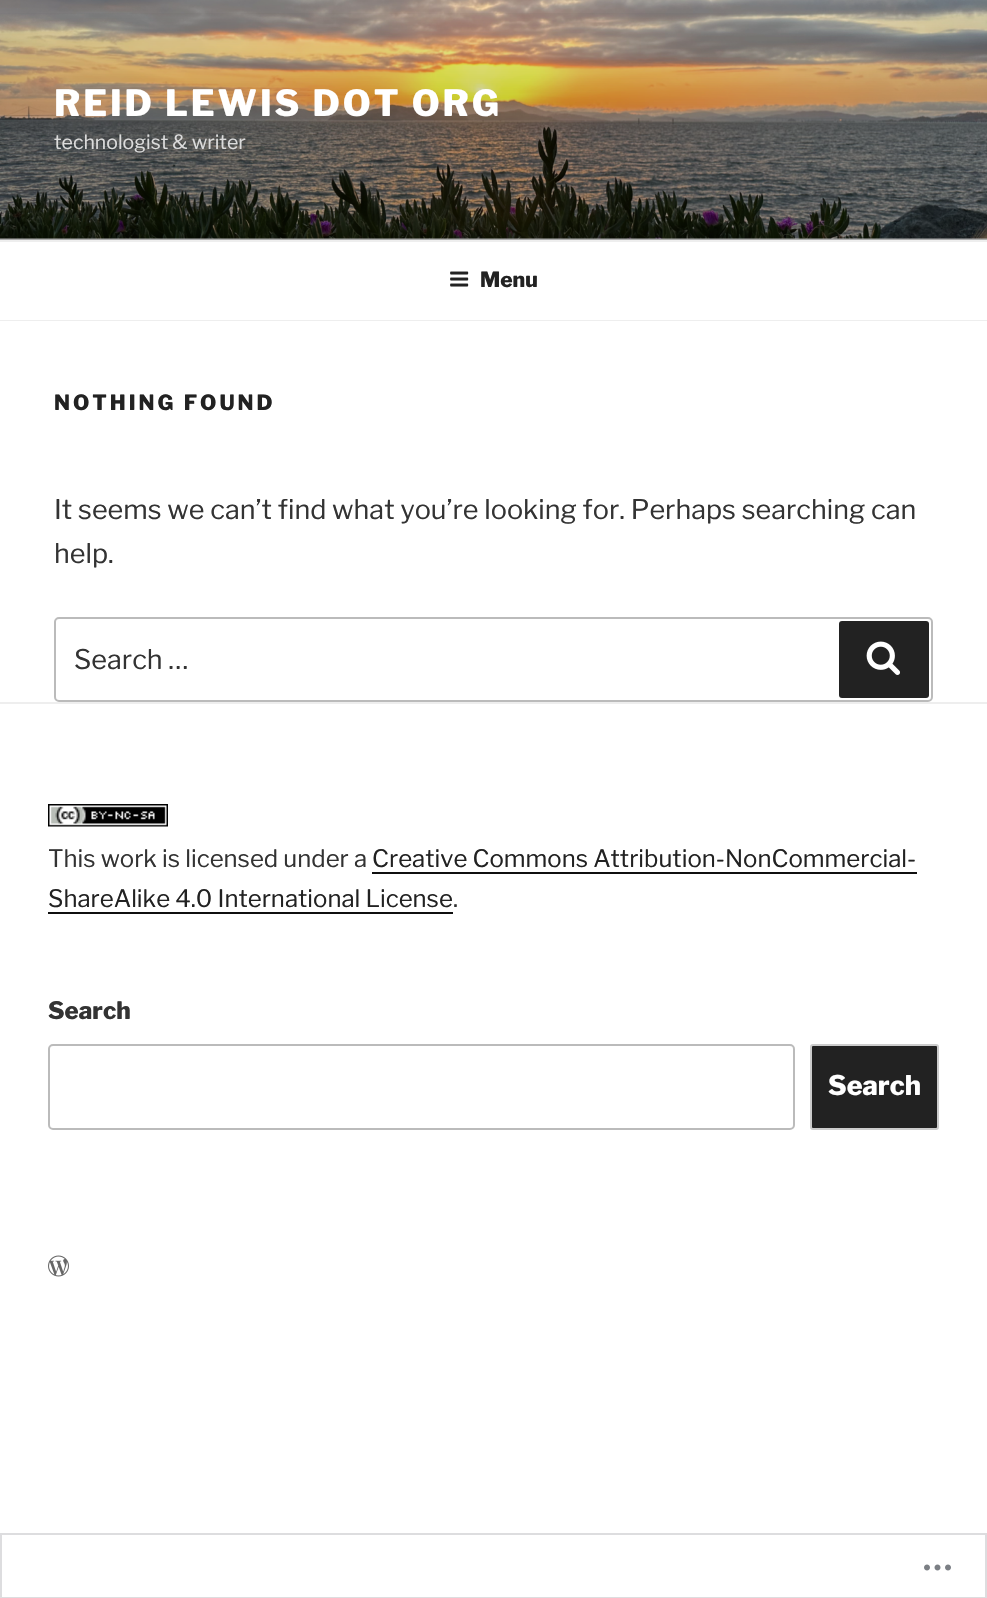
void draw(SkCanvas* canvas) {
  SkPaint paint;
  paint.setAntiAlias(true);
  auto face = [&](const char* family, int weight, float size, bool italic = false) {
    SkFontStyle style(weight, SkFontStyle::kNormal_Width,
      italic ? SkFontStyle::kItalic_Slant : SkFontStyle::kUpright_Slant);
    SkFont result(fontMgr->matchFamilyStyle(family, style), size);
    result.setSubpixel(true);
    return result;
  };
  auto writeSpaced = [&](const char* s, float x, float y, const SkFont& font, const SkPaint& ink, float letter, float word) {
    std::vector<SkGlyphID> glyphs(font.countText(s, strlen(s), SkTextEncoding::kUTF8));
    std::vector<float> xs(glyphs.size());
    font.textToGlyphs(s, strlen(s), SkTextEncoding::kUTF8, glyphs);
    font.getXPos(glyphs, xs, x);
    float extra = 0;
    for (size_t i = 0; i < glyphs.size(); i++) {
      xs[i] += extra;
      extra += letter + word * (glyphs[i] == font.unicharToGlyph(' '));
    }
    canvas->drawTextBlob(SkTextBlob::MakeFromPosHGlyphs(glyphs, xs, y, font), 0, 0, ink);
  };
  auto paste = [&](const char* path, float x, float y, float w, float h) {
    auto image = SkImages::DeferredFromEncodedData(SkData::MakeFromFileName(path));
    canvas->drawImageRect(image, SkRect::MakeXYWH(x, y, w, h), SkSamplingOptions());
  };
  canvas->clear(0xffffffff);
  paint.setColor(0xfffafafa);
  canvas->drawRect(SkRect::MakeXYWH(0, 238, 987, 2), paint);
  paste("img/1.png", 0, 0, 987, 239);
  {
    const SkColor colors[] = {0x00000000, 0x4d000000, 0x4d000000};
    const float stops[] = {0, 0.75f, 1};
    const SkPoint ends[] = {{494, 0}, {494, 240}};
    paint.setShader(SkGradientShader::MakeLinear(ends, colors, stops, 3, SkTileMode::kClamp));
    paint.setAlpha(255);
  }
  canvas->drawRect(SkRect::MakeXYWH(0, 13, 987, 227), paint);
  paint.setShader(nullptr);
  paint.setColor(0xffeeeeee);
  canvas->drawRect(SkRect::MakeXYWH(0, 240, 987, 2), paint);
  canvas->drawRect(SkRect::MakeXYWH(0, 320, 987, 1), paint);
  paste("img/2.png", 450, 271, 19, 16);
  paint.setStroke(true);
  paint.setStrokeWidth(2);
  paint.setColor(0xffbbbbbb);
  canvas->drawRoundRect(SkRect::MakeXYWH(55, 618, 877, 83), 4, 4, paint);
  paint.setStroke(false);
  paint.setColor(0xff222222);
  canvas->drawRoundRect(SkRect::MakeXYWH(839, 621, 90, 77), 3, 3, paint);
  paste("img/3.png", 866, 641, 34, 34);
  paint.setColor(0xffeeeeee);
  canvas->drawRect(SkRect::MakeXYWH(0, 702, 987, 2), paint);
  paste("img/4.png", 48, 804, 120, 23);
  paint.setColor(0xff0f0f0f);
  canvas->drawRect(SkRect::MakeXYWH(372, 872, 545, 2), paint);
  canvas->drawRect(SkRect::MakeXYWH(48, 912, 405, 2), paint);
  paint.setStroke(true);
  paint.setColor(0xffbbbbbb);
  canvas->drawRoundRect(SkRect::MakeXYWH(49, 1045, 745, 84), 4, 4, paint);
  paint.setStroke(false);
  paint.setColor(0xff222222);
  canvas->drawRoundRect(SkRect::MakeXYWH(811, 1045, 127, 84), 2, 2, paint);
  paint.setStroke(true);
  paint.setColor(0xffcccccc);
  canvas->drawRoundRect(SkRect::MakeXYWH(811, 1045, 127, 84), 2, 2, paint);
  paste("img/5.png", 48, 1255, 21, 22);
  paint.setColor(0xffdddddf);
  canvas->drawRect(SkRect::MakeXYWH(1, 1534, 985, 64), paint);
  paste("img/6.png", 924, 1564, 27, 7);
  auto f0 = face("Libre Franklin", 100, 36);
  paint.setStroke(false);
  paint.setColor(0xffffffff);
  writeSpaced("REID LEWIS DOT ORG", 54, 116, f0, paint, 2.9f, 0);
  auto f1 = face("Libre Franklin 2", 100, 19.5f);
  paint.setColor(0xffdcdcdc);
  canvas->drawString("technologist & writer", 54, 149, f1, paint);
  auto f2 = face("Libre Franklin", 100, 21);
  paint.setColor(0xff222222);
  canvas->drawString("Menu", 480, 287, f2, paint);
  writeSpaced("NOTHING FOUND", 54, 410, f2, paint, 3, 0);
  auto f3 = face("Libre Franklin 2", 100, 27);
  paint.setColor(0xff333333);
  {
    const struct { const char* s; float x, y; } items[] = {
      {"It seems we can’t find what you’re looking for. Perhaps searching can", 54, 519},
      {"help.", 54, 563},
      {"Search …", 74, 669},
    };
    for (auto [s, x, y] : items) {
      canvas->drawString(s, x, y, f3, paint);
    }
  }
  auto f4 = face("Libre Franklin 2", 100, 24);
  canvas->drawString("This work is licensed under a", 48, 867, f4, paint);
  paint.setColor(0xff222222);
  canvas->drawString("Creative Commons Attribution-NonCommercial-", 372, 867, f4, paint);
  canvas->drawString("ShareAlike 4.0 International License", 48, 907, f4, paint);
  paint.setColor(0xff333333);
  canvas->drawString(".", 453, 907, f4, paint);
  auto f5 = face("Libre Franklin", 100, 24);
  canvas->drawString("Search", 48, 1019, f5, paint);
  auto f6 = face("Libre Franklin", 100, 27);
  paint.setColor(0xffffffff);
  canvas->drawString("Search", 828, 1095, f6, paint);
}
